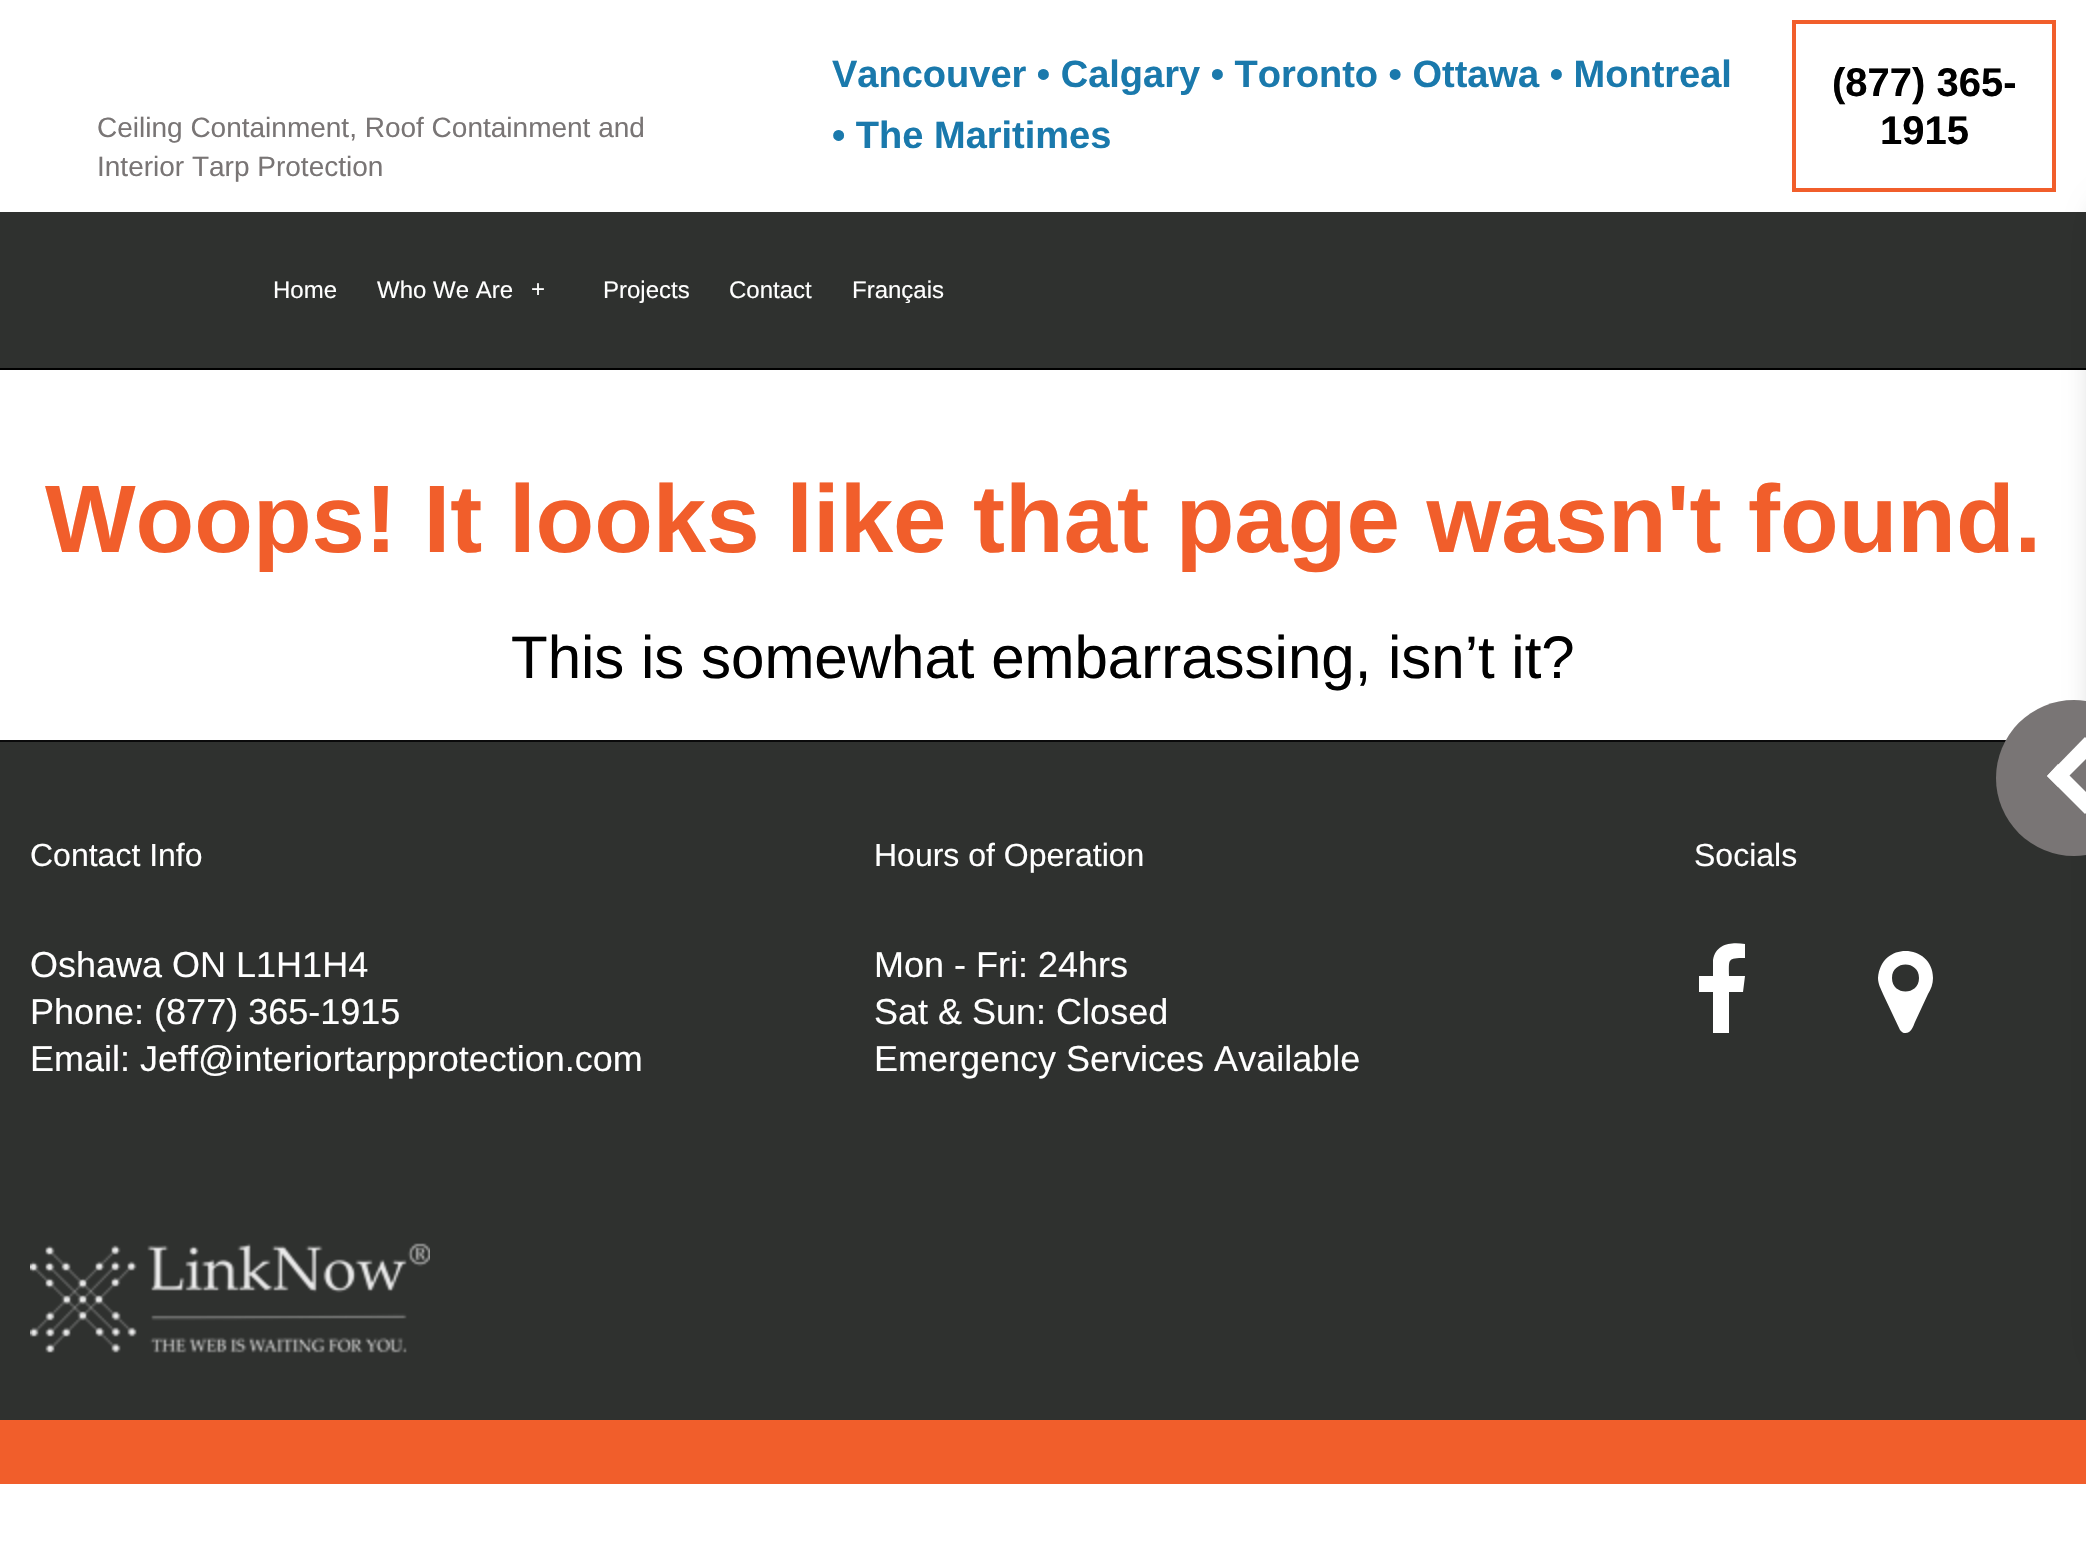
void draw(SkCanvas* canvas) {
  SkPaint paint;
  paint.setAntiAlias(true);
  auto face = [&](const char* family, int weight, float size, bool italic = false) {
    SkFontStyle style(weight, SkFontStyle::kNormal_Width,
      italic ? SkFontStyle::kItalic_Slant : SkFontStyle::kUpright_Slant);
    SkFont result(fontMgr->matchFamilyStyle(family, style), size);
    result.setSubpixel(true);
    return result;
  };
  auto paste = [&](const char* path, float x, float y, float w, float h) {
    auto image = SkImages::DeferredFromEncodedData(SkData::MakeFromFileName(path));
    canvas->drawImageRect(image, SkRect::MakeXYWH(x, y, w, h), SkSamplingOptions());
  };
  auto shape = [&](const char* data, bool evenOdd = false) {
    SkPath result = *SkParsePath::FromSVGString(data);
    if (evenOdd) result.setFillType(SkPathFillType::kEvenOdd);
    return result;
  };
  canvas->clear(0xffffffff);
  paint.setColor(0xff000000);
  canvas->drawRect(SkRect::MakeXYWH(0, 368, 2086, 2), paint);
  paint.setStroke(true);
  paint.setStrokeWidth(4);
  paint.setColor(0xfff15e2b);
  canvas->drawRect(SkRect::MakeXYWH(1794, 22, 260, 168), paint);
  paint.setStroke(false);
  paint.setColor(0xff2f312f);
  canvas->drawRect(SkRect::MakeXYWH(0, 212, 2086, 156), paint);
  canvas->drawRect(SkRect::MakeXYWH(0, 742, 2086, 678), paint);
  paint.setColor(0x2b000000);
  paint.setMaskFilter(SkMaskFilter::MakeBlur(kNormal_SkBlurStyle, 13));
  canvas->drawRoundRect(SkRect::MakeXYWH(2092, 190, 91, 1190), 58, 58, paint);
  paint.setMaskFilter(nullptr);
  paint.setColor(0xff0a0a0b);
  canvas->drawRect(SkRect::MakeXYWH(0, 740, 2006, 2), paint);
  paint.setColor(0xff797575);
  canvas->drawCircle(2074, 778, 78, paint);
  paint.setColor(0xffffffff);
  canvas->drawPath(shape("M2047 776L2085 737L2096 749L2058 787Z"), paint);
  canvas->drawPath(shape("M2047 776L2058 764L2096 802L2085 814Z"), paint);
  paint.setColor(0xfff15e2b);
  canvas->drawRect(SkRect::MakeXYWH(0, 1420, 2086, 64), paint);
  paint.setColor(0xffffffff);
  canvas->drawPath(shape("M1745 944C1732 942 1716 943 1713 960V976H1699V992H1713V1033H1729V992H1743L1745 976H1729C1729 959 1727 958 1745 958Z"), paint);
  canvas->drawPath(shape("M1919 978C1919 996 1892 996 1892 978C1892 960 1919 960 1919 978ZM1933 978C1933 944 1881 940 1878 978C1878 984 1881 989 1883 994L1900 1030C1901 1031 1903 1033 1904 1033C1911 1034 1913 1027 1915 1022L1928 994C1931 989 1933 984 1933 978Z"), paint);
  paste("img/1.png", 30, 1243, 400, 110);
  auto f0 = face("Liberation Sans", 400, 28);
  paint.setColor(0xff797575);
  canvas->drawString("Ceiling Containment, Roof Containment and", 97, 137, f0, paint);
  canvas->drawString("Interior Tarp Protection", 97, 176, f0, paint);
  auto f1 = face("Liberation Sans", 700, 38);
  paint.setColor(0xff1a79ac);
  canvas->drawString("Vancouver • Calgary • Toronto • Ottawa • Montreal", 832, 87, f1, paint);
  canvas->drawString("• The Maritimes", 832, 148, f1, paint);
  auto f2 = face("Liberation Sans", 700, 40);
  paint.setColor(0xff000000);
  canvas->drawString("(877) 365-", 1832, 96, f2, paint);
  canvas->drawString("1915", 1880, 144, f2, paint);
  auto f3 = face("Liberation Sans", 400, 24);
  paint.setColor(0xffffffff);
  {
    const struct { const char* s; float x, y; } items[] = {
      {"Home", 273, 298},
      {"Who We Are", 377, 298},
      {"+", 531, 297},
      {"Projects", 603, 298},
      {"Contact", 729, 298},
      {"Français", 852, 298},
    };
    for (auto [s, x, y] : items) {
      canvas->drawString(s, x, y, f3, paint);
    }
  }
  auto f4 = face("Liberation Sans", 700, 96);
  paint.setColor(0xfff15e2b);
  canvas->drawString("Woops! It looks like that page wasn't found.", 45, 552, f4, paint);
  auto f5 = face("Liberation Sans", 400, 60);
  paint.setColor(0xff000000);
  canvas->drawString("This is somewhat embarrassing, isn’t it?", 511, 678, f5, paint);
  auto f6 = face("Liberation Sans", 400, 32);
  paint.setColor(0xffffffff);
  canvas->drawString("Contact Info", 30, 866, f6, paint);
  auto f7 = face("Liberation Sans", 400, 36);
  {
    const struct { const char* s; float x, y; } items[] = {
      {"Oshawa ON L1H1H4", 30, 977},
      {"Phone: (877) 365-1915", 30, 1024},
      {"Email: Jeff@interiortarpprotection.com", 30, 1071},
    };
    for (auto [s, x, y] : items) {
      canvas->drawString(s, x, y, f7, paint);
    }
  }
  canvas->drawString("Hours of Operation", 874, 866, f6, paint);
  {
    const struct { const char* s; float x, y; } items[] = {
      {"Mon - Fri: 24hrs", 874, 977},
      {"Sat & Sun: Closed", 874, 1024},
      {"Emergency Services Available", 874, 1071},
    };
    for (auto [s, x, y] : items) {
      canvas->drawString(s, x, y, f7, paint);
    }
  }
  canvas->drawString("Socials", 1694, 866, f6, paint);
}
